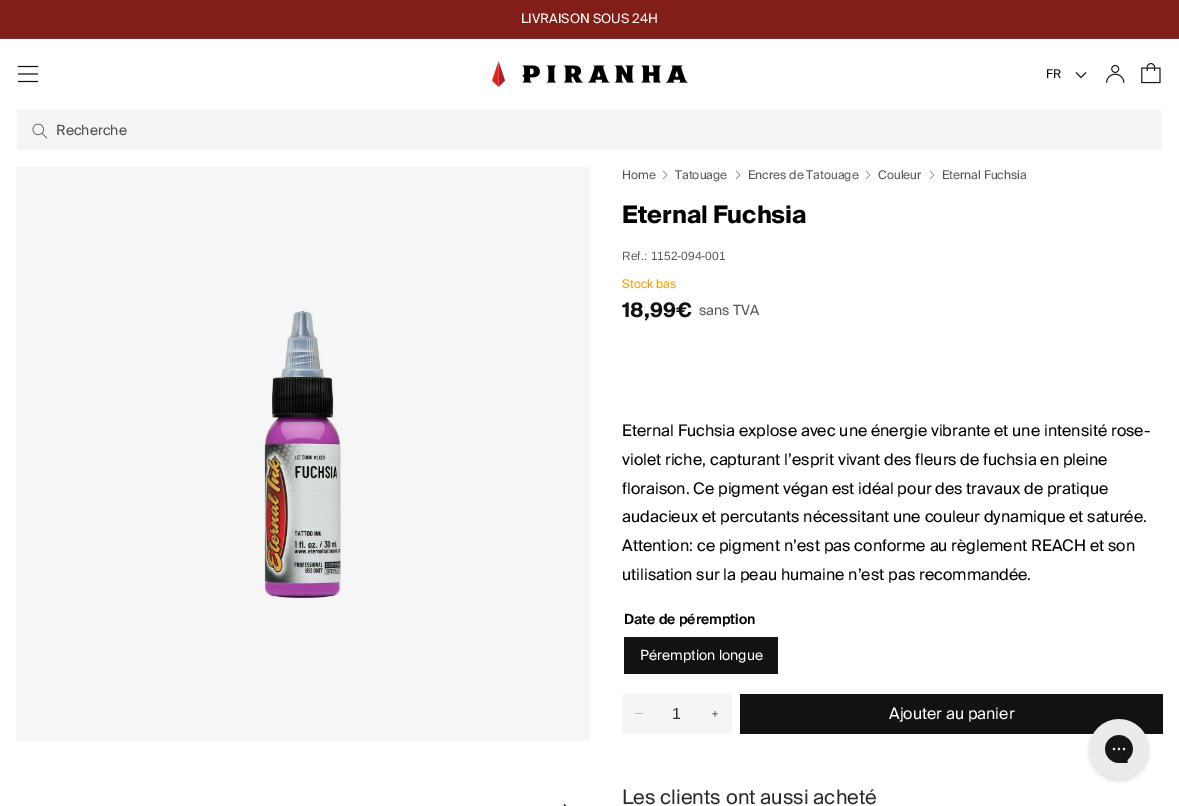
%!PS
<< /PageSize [1179 806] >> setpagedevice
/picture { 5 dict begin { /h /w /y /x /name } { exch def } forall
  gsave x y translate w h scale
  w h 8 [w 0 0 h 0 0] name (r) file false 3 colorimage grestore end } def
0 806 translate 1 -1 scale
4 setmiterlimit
1 setgray
0 0 1179 806 rectfill
0.502 0.118 0.09 setrgbcolor
0 0 1179 38 rectfill
0.541 0.188 0.165 setrgbcolor
0 38 1179 1 rectfill
/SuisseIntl-Regular [13 0 0 -13 0 0] selectfont
1 setgray
521 23 moveto (LIVRAISON SOUS 24H) show
(img1.rgb) 18 65 20 18 picture
(img2.rgb) 492 61 196 26 picture
/SuisseIntl-Regular [12 0 0 -12 0 0] selectfont
0.071 setgray
1046 78 moveto (FR) show
newpath 1086 72.5 moveto 1081 77.5 lineto 1076 72.5 lineto stroke
(img3.rgb) 1106 64 19 19 picture
(img4.rgb) 1141 63 20 21 picture
0.961 setgray
17 110 1145 40 rectfill
(img5.rgb) 32 123 16 16 picture
/SuisseIntl-Regular [14 0 0 -14 0 0] selectfont
0.318 0.31 0.31 setrgbcolor
56 135 moveto (Recherche) show
(img6.rgb) 16 167 574 574 picture
0.004 0.004 0.008 setrgbcolor
0.8 setlinewidth
newpath 564 804.5 moveto 568 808.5 lineto 564 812.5 lineto stroke
/SuisseIntl-Regular [12 0 0 -12 0 0] selectfont
0.349 0.341 0.341 setrgbcolor
622 179 moveto (Home) show
0.541 0.561 0.588 setrgbcolor
0.7 setlinewidth
1 setlinejoin
newpath 663 179 moveto 667 175 lineto 663 171 lineto stroke
0.349 0.341 0.341 setrgbcolor
675 179 moveto (Tatouage) show
0.541 0.561 0.588 setrgbcolor
newpath 736 179 moveto 740 175 lineto 736 171 lineto stroke
0.349 0.341 0.341 setrgbcolor
748 179 moveto (Encres de Tatouage) show
0.541 0.561 0.588 setrgbcolor
newpath 866 179 moveto 870 175 lineto 866 171 lineto stroke
0.349 0.341 0.341 setrgbcolor
878 179 moveto (Couleur) show
0.541 0.561 0.588 setrgbcolor
newpath 930 179 moveto 934 175 lineto 930 171 lineto stroke
0.349 0.341 0.341 setrgbcolor
942 179 moveto (Eternal Fuchsia) show
/SuisseIntl-Bold [24 0 0 -24 0 0] selectfont
0 setgray
622 223 moveto (Eternal Fuchsia) show
/LiberationSans-Regular [12 0 0 -12 0 0] selectfont
0.349 0.341 0.341 setrgbcolor
622 260 moveto (Ref.: 1152-094-001) show
/SuisseIntl-Regular [12 0 0 -12 0 0] selectfont
0.976 0.62 0.027 setrgbcolor
622 288 moveto (Stock bas) show
/SuisseIntl-Bold [20 0 0 -20 0 0] selectfont
0.071 setgray
622 317 moveto (18,99€) show
/SuisseIntl-Regular [14 0 0 -14 0 0] selectfont
0.349 0.341 0.341 setrgbcolor
699 315 moveto (sans TVA) show
/SuisseIntl-Regular [16 0 0 -16 0 0] selectfont
0 setgray
622 436 moveto (Eternal Fuchsia explose avec une énergie vibrante et une intensité rose-) show
622 465 moveto (violet riche, capturant l’esprit vivant des fleurs de fuchsia en pleine) show
622 494 moveto (floraison. Ce pigment végan est idéal pour des travaux de pratique) show
622 522 moveto (audacieux et percutants nécessitant une couleur dynamique et saturée.) show
622 551 moveto (Attention: ce pigment n’est pas conforme au règlement REACH et son) show
622 580 moveto (utilisation sur la peau humaine n’est pas recommandée.) show
/SuisseIntl-SemiBold [14 0 0 -14 0 0] selectfont
624 624 moveto (Date de péremption) show
0.071 setgray
624 637 154 37 rectfill
/SuisseIntl-Regular [14 0 0 -14 0 0] selectfont
1 setgray
640 660 moveto (Péremption longue) show
0.961 setgray
622 694 110 40 rectfill
0.576 0.576 0.58 setrgbcolor
newpath 643 714 moveto 635 714 lineto 635 713.5 lineto 643 713.5 lineto closepath eofill
/LiberationSans-Regular [16 0 0 -16 0 0] selectfont
0.204 setgray
672 719 moveto (1) show
(img7.rgb) 712 711 6 6 picture
0.071 setgray
740 694 423 40 rectfill
/SuisseIntl-Regular [16 0 0 -16 0 0] selectfont
1 setgray
889 719 moveto (Ajouter au panier) show
/SuisseIntl-Regular [20 0 0 -20 0 0] selectfont
0.157 0.165 0.173 setrgbcolor
622 804 moveto (Les clients ont aussi acheté) show
(img8.rgb) 1087 719 64 64 picture
showpage
